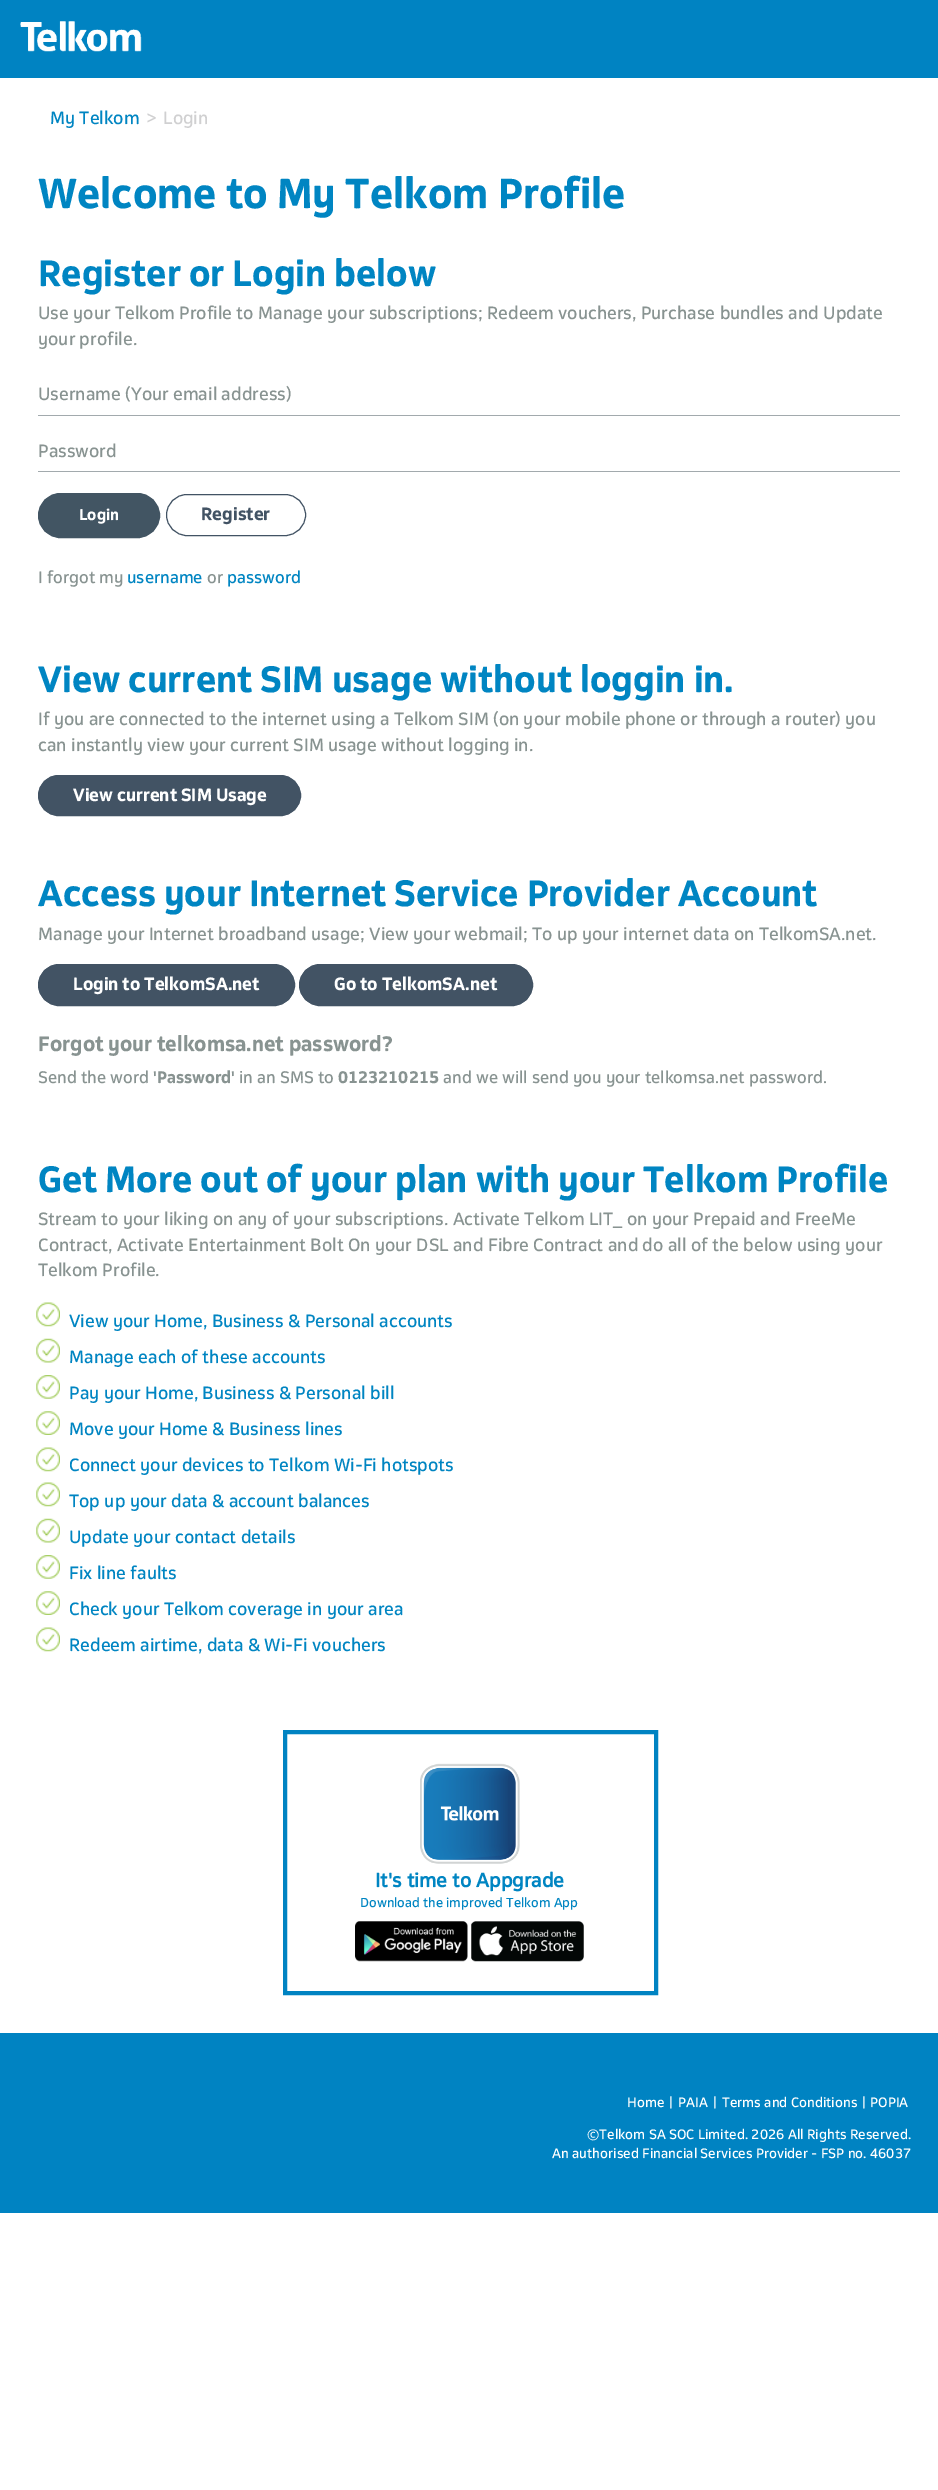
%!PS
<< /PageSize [938 2490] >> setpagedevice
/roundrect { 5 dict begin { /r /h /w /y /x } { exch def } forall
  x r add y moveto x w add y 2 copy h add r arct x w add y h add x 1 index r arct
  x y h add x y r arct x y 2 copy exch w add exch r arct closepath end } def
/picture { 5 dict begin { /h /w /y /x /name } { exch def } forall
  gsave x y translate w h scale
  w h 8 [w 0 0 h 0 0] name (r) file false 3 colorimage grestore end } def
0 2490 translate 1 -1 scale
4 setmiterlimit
1 setgray
0 0 938 2490 rectfill
0 0.514 0.761 setrgbcolor
0 0 938 78 rectfill
(img1.rgb) 20 21 122 31 picture
/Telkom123-Regular [17 0 0 -17 0 0] selectfont
0 0.522 0.761 setrgbcolor
50 124 moveto (My Telkom) show
0.816 0.816 0.82 setrgbcolor
146 124 moveto (>) show
163 124 moveto (Login) show
/Telkom123-Bold [40 0 0 -40 0 0] selectfont
0 0.522 0.761 setrgbcolor
38 208 moveto (Welcome to My Telkom Profile) show
/Telkom123-Bold [35 0 0 -35 0 0] selectfont
38 286 moveto (Register or Login below) show
/Telkom123-Regular [17 0 0 -17 0 0] selectfont
0.533 0.576 0.569 setrgbcolor
38 319 moveto (Use your Telkom Profile to Manage your subscriptions; Redeem vouchers, Purchase bundles and Update) show
38 345 moveto (your profile.) show
0.635 0.667 0.678 setrgbcolor
38 415 862 1 rectfill
0.533 0.576 0.569 setrgbcolor
38 400 moveto (Username \(Your email address\)) show
0.635 0.667 0.678 setrgbcolor
38 471 862 1 rectfill
0.533 0.576 0.569 setrgbcolor
38 457 moveto (Password) show
0.259 0.333 0.388 setrgbcolor
38.5 493.5 121 44 22 roundrect gsave fill grestore
stroke
/Telkom123-Bold [15 0 0 -15 0 0] selectfont
1 setgray
79 520 moveto (Login) show
0.259 0.325 0.392 setrgbcolor
166.5 494.5 139 41 20.5 roundrect stroke
/Telkom123-Bold [17 0 0 -17 0 0] selectfont
201 520 moveto (Register) show
/Telkom123-Regular [16 0 0 -16 0 0] selectfont
0.533 0.576 0.569 setrgbcolor
38 583 moveto (I forgot my) show
0 0.522 0.761 setrgbcolor
127 583 moveto (username) show
0.533 0.576 0.569 setrgbcolor
207 583 moveto (or) show
0 0.522 0.761 setrgbcolor
227 583 moveto (password) show
/Telkom123-Bold [35 0 0 -35 0 0] selectfont
38 692 moveto (View current SIM usage without loggin in.) show
/Telkom123-Regular [17 0 0 -17 0 0] selectfont
0.533 0.576 0.569 setrgbcolor
38 725 moveto (If you are connected to the internet using a Telkom SIM \(on your mobile phone or through a router\) you) show
38 751 moveto (can instantly view your current SIM usage without logging in.) show
0.259 0.325 0.392 setrgbcolor
38.5 775.5 262 40 20 roundrect gsave fill grestore
stroke
/Telkom123-Bold [17 0 0 -17 0 0] selectfont
1 setgray
73 801 moveto (View current SIM Usage) show
/Telkom123-Bold [35 0 0 -35 0 0] selectfont
0 0.522 0.761 setrgbcolor
38 906 moveto (Access your Internet Service Provider Account) show
/Telkom123-Regular [17 0 0 -17 0 0] selectfont
0.533 0.576 0.569 setrgbcolor
38 940 moveto (Manage your Internet broadband usage; View your webmail; To up your internet data on TelkomSA.net.) show
0.259 0.325 0.392 setrgbcolor
38.5 964.5 256 41 20.5 roundrect gsave fill grestore
stroke
/Telkom123-Bold [17 0 0 -17 0 0] selectfont
1 setgray
73 990 moveto (Login to TelkomSA.net) show
0.259 0.325 0.392 setrgbcolor
299.5 964.5 233 41 20.5 roundrect gsave fill grestore
stroke
1 setgray
334 990 moveto (Go to TelkomSA.net) show
/Telkom123-Bold [20 0 0 -20 0 0] selectfont
0.533 0.576 0.569 setrgbcolor
38 1051 moveto (Forgot your telkomsa.net password?) show
/Telkom123-Regular [16 0 0 -16 0 0] selectfont
38 1083 moveto (Send the word) show
/Telkom123-Bold [16 0 0 -16 0 0] selectfont
153 1083 moveto ('Password') show
/Telkom123-Regular [16 0 0 -16 0 0] selectfont
239 1083 moveto (in an SMS to) show
/Telkom123-Bold [16 0 0 -16 0 0] selectfont
338 1083 moveto (0123210215) show
/Telkom123-Regular [16 0 0 -16 0 0] selectfont
443 1083 moveto (and we will send you your telkomsa.net password.) show
/Telkom123-Bold [35 0 0 -35 0 0] selectfont
0 0.522 0.761 setrgbcolor
38 1192 moveto (Get More out of your plan with your Telkom Profile) show
/Telkom123-Regular [17 0 0 -17 0 0] selectfont
0.533 0.576 0.569 setrgbcolor
38 1225 moveto (Stream to your liking on any of your subscriptions. Activate Telkom LIT_ on your Prepaid and FreeMe) show
38 1251 moveto (Contract, Activate Entertainment Bolt On your DSL and Fibre Contract and do all of the below using your) show
38 1276 moveto (Telkom Profile.) show
(img2.rgb) 36 1302 24 25 picture
0 0.522 0.761 setrgbcolor
69 1327 moveto (View your Home, Business & Personal accounts) show
(img3.rgb) 36 1338 24 25 picture
69 1363 moveto (Manage each of these accounts) show
(img4.rgb) 36 1375 24 24 picture
69 1399 moveto (Pay your Home, Business & Personal bill) show
(img5.rgb) 36 1411 24 24 picture
69 1435 moveto (Move your Home & Business lines) show
(img2.rgb) 36 1447 24 25 picture
69 1471 moveto (Connect your devices to Telkom Wi-Fi hotspots) show
(img2.rgb) 36 1482 24 25 picture
69 1507 moveto (Top up your data & account balances) show
(img3.rgb) 36 1518 24 25 picture
69 1543 moveto (Update your contact details) show
(img6.rgb) 36 1555 24 24 picture
69 1579 moveto (Fix line faults) show
(img5.rgb) 36 1591 24 24 picture
69 1615 moveto (Check your Telkom coverage in your area) show
(img2.rgb) 36 1627 24 25 picture
69 1651 moveto (Redeem airtime, data & Wi-Fi vouchers) show
0 0.514 0.761 setrgbcolor
4 setlinewidth
285 1732 371 261 rectstroke
(img7.rgb) 420 1763 100 101 picture
/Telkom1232-Bold [18.75 0 0 -18.75 0 0] selectfont
0 0.522 0.761 setrgbcolor
375 1887 moveto (It's time to Appgrade) show
/Telkom123-Regular [12.5 0 0 -12.5 0 0] selectfont
360 1907 moveto (Download the improved Telkom App) show
(img8.rgb) 355 1921 113 41 picture
(img9.rgb) 471 1921 113 41 picture
0 0.514 0.761 setrgbcolor
0 2033 938 180 rectfill
/Telkom123-Regular [13 0 0 -13 0 0] selectfont
1 setgray
627 2107 moveto (Home) show
669 2107 moveto (|) show
678 2107 moveto (PAIA) show
713 2107 moveto (|) show
722 2107 moveto (Terms and Conditions) show
862 2107 moveto (|) show
870 2107 moveto (POPIA) show
587 2139 moveto (©Telkom SA SOC Limited. 2026 All Rights Reserved.) show
552 2158 moveto (An authorised Financial Services Provider - FSP no. 46037) show
showpage
